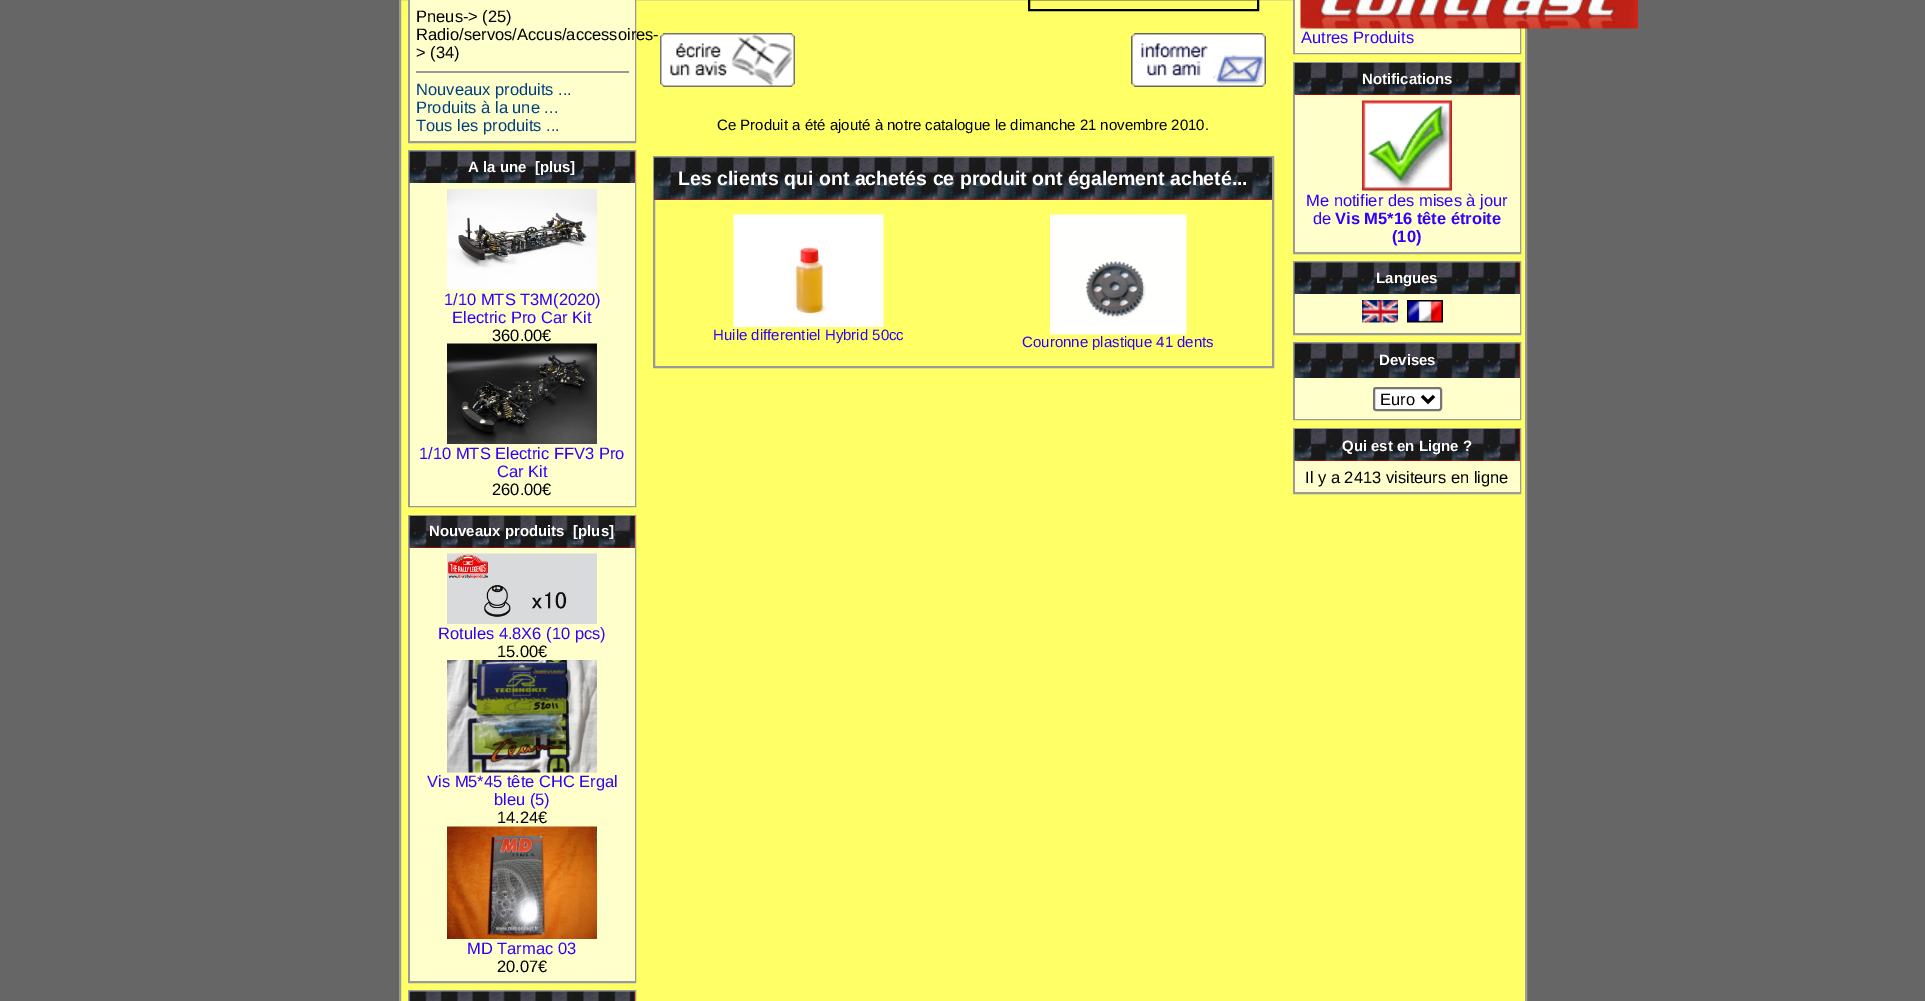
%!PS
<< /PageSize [1925 1001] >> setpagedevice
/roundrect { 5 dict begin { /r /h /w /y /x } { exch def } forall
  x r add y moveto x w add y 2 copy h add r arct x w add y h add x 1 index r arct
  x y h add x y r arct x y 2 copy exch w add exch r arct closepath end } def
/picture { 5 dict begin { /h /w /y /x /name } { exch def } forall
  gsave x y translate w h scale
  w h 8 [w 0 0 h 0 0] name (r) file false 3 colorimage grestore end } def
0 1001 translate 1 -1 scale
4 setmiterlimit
0.4 setgray
0 0 1925 1001 rectfill
1 1 0.4 setrgbcolor
newpath 400 -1 moveto 1526 -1 lineto 1526 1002 lineto 400 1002 lineto closepath gsave fill grestore
0.604 setgray
2 setlinewidth
stroke
409 -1 226 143 rectstroke
1 1 0.8 setrgbcolor
410 0 225 141 rectfill
/LiberationSans-Regular [16.5 0 0 -16.5 0 0] selectfont
0 setgray
416 22 moveto (Pneus-> \(25\)) show
416 40 moveto (Radio/servos/Accus/accessoires-) show
416 58 moveto (> \(34\)) show
0.604 setgray
416 71 213 2 rectfill
0 0.251 0.502 setrgbcolor
416 95 moveto (Nouveaux produits ...) show
416 113 moveto (Produits à la une ...) show
416 131 moveto (Tous les produits ...) show
0.604 setgray
409 151 226 355 rectstroke
1 0 0 setrgbcolor
634 152 1 31 rectfill
(img1.rgb) 409 151 226 32 picture
/LiberationSans-Bold [15 0 0 -15 0 0] selectfont
1 setgray
468 172 moveto (A la une  [plus]) show
1 1 0.8 setrgbcolor
410 183 225 323 rectfill
(img2.rgb) 447 189 150 101 picture
/LiberationSans-Regular [16.5 0 0 -16.5 0 0] selectfont
0.2 0 1 setrgbcolor
444 305 moveto (1/10 MTS T3M\(2020\)) show
452 323 moveto (Electric Pro Car Kit) show
0 setgray
492 341 moveto (360.00€) show
(img3.rgb) 447 343 150 101 picture
0.2 0 1 setrgbcolor
419 459 moveto (1/10 MTS Electric FFV3 Pro) show
497 477 moveto (Car Kit) show
0 setgray
492 495 moveto (260.00€) show
0.604 setgray
409 516 226 466 rectstroke
1 0 0 setrgbcolor
410 516 225 32 rectfill
(img4.rgb) 409 516 226 32 picture
/LiberationSans-Bold [15 0 0 -15 0 0] selectfont
1 setgray
429 536 moveto (Nouveaux produits  [plus]) show
1 1 0.8 setrgbcolor
410 548 225 433 rectfill
(img5.rgb) 447 553 150 71 picture
/LiberationSans-Regular [16.5 0 0 -16.5 0 0] selectfont
0.2 0 1 setrgbcolor
438 639 moveto (Rotules 4.8X6 \(10 pcs\)) show
0 setgray
497 657 moveto (15.00€) show
(img6.rgb) 447 660 150 113 picture
0.2 0 1 setrgbcolor
427 787 moveto (Vis M5*45 tête CHC Ergal) show
494 805 moveto (bleu \(5\)) show
0 setgray
497 823 moveto (14.24€) show
(img7.rgb) 447 826 150 113 picture
0.2 0 1 setrgbcolor
467 954 moveto (MD Tarmac 03) show
0 setgray
497 972 moveto (20.07€) show
0.604 setgray
409 991 226 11 rectstroke
1 0 0 setrgbcolor
634 992 1 9 rectfill
(img8.rgb) 409 991 226 10 picture
0 setgray
1029 -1 229 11 rectstroke
(img9.rgb) 660 33 135 54 picture
(img10.rgb) 1131 33 135 54 picture
/LiberationSans-Regular [15 0 0 -15 0 0] selectfont
717 130 moveto (Ce Produit a été ajouté à notre catalogue le dimanche 21 novembre 2010.) show
0.604 setgray
654 157 619 210 rectstroke
1 0 0 setrgbcolor
654 199 618 1 rectfill
(img11.rgb) 654 157 618 43 picture
/LiberationSans-Bold [19.5 0 0 -19.5 0 0] selectfont
1 setgray
678 185 moveto (Les clients qui ont achetés ce produit ont également acheté...) show
(img12.rgb) 733 214 151 113 picture
/LiberationSans-Regular [15 0 0 -15 0 0] selectfont
0.2 0 1 setrgbcolor
713 340 moveto (Huile differentiel Hybrid 50cc) show
(img13.rgb) 1050 214 137 121 picture
1022 347 moveto (Couronne plastique 41 dents) show
0.604 setgray
1294 -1 226 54 rectstroke
1 1 0.8 setrgbcolor
1295 0 225 53 rectfill
(img14.rgb) 1300 0 338 29 picture
/LiberationSans-Regular [16.5 0 0 -16.5 0 0] selectfont
0.2 0 1 setrgbcolor
1301 43 moveto (Autres Produits) show
0.604 setgray
1294 63 226 190 rectstroke
1 0 0 setrgbcolor
1295 63 225 32 rectfill
(img15.rgb) 1294 63 226 32 picture
/LiberationSans-Bold [15 0 0 -15 0 0] selectfont
1 setgray
1362 84 moveto (Notifications) show
1 1 0.8 setrgbcolor
1295 95 225 157 rectfill
(img16.rgb) 1362 100 90 91 picture
/LiberationSans-Regular [16.5 0 0 -16.5 0 0] selectfont
0.2 0 1 setrgbcolor
1306 206 moveto (Me notifier des mises à jour) show
1313 224 moveto (de) show
/LiberationSans-Bold [16.5 0 0 -16.5 0 0] selectfont
1335 224 moveto (Vis M5*16 tête étroite) show
1392 242 moveto (\(10\)) show
0.604 setgray
1294 262 226 72 rectstroke
1 0 0 setrgbcolor
1519 263 1 31 rectfill
(img17.rgb) 1294 262 226 32 picture
/LiberationSans-Bold [15 0 0 -15 0 0] selectfont
1 setgray
1376 283 moveto (Langues) show
1 1 0.8 setrgbcolor
1295 294 225 39 rectfill
(img18.rgb) 1362 300 36 23 picture
(img19.rgb) 1407 300 36 23 picture
0.604 setgray
1294 343 226 76 rectstroke
1 0 0 setrgbcolor
1519 344 1 34 rectfill
(img20.rgb) 1294 343 226 35 picture
1 setgray
1379 365 moveto (Devises) show
1 1 0.8 setrgbcolor
1295 378 225 41 rectfill
1 setgray
1374 388 67 22 2 roundrect gsave fill grestore
0.463 setgray
stroke
0 setgray
3 setlinewidth
newpath 1422 396 moveto 1428 402 lineto 1434 396 lineto stroke
/LiberationSans-Regular [16.5 0 0 -16.5 0 0] selectfont
1380 405 moveto (Euro) show
0.604 setgray
2 setlinewidth
1294 429 226 64 rectstroke
1 0 0 setrgbcolor
1295 429 225 32 rectfill
(img21.rgb) 1294 429 226 32 picture
/LiberationSans-Bold [15 0 0 -15 0 0] selectfont
1 setgray
1342 451 moveto (Qui est en Ligne ?) show
1 1 0.8 setrgbcolor
1295 461 225 31 rectfill
/LiberationSans-Regular [16.5 0 0 -16.5 0 0] selectfont
0 setgray
1305 483 moveto (Il y a 2413 visiteurs en ligne) show
showpage
